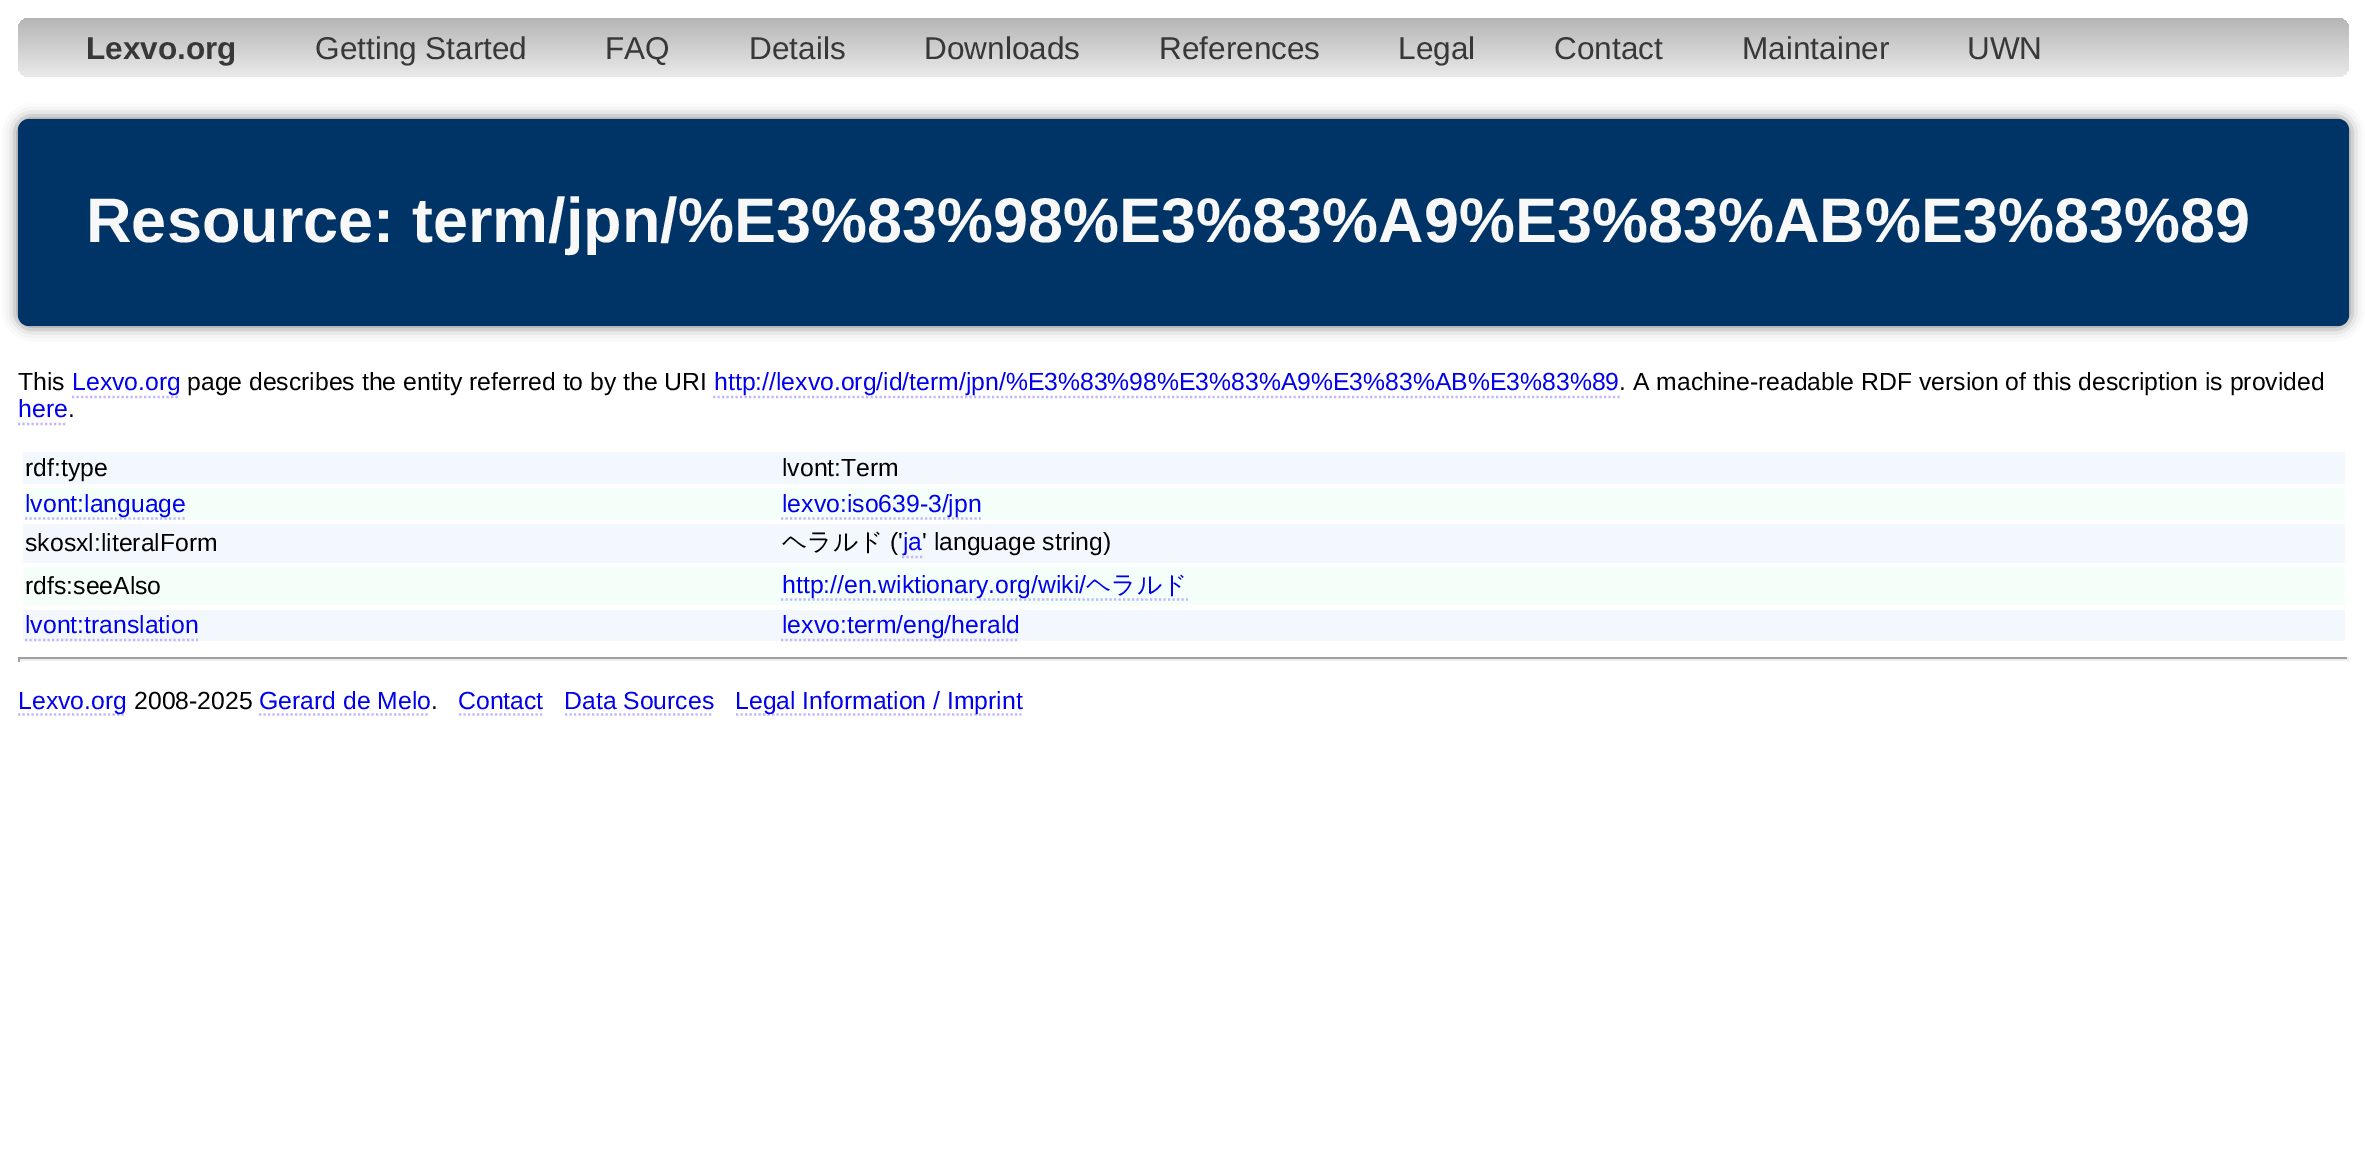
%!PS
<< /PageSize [2365 1161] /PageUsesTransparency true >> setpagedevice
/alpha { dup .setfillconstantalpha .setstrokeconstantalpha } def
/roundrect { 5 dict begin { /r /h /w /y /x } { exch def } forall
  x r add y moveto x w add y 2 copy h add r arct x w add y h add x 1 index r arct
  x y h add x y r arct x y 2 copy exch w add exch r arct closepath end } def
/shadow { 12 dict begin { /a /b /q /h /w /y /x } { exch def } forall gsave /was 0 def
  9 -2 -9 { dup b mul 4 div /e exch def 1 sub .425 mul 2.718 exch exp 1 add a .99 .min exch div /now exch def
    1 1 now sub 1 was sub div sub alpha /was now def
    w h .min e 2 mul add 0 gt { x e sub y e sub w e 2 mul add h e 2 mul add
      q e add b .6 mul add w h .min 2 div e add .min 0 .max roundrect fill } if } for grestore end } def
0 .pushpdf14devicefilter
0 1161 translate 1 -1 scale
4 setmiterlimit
1 setgray
0 0 2365 1161 rectfill
gsave 18 18 2331 59 11 roundrect clip newpath
<< /ShadingType 2 /ColorSpace /DeviceRGB /Coords [1184 18 1184 77] /Extend [true true] /Function << /FunctionType 2 /Domain [0 1] /C0 [0.71 0.71 0.71] /C1 [0.918 0.918 0.918] /N 1 >> >> shfill grestore
/LiberationSans-Bold [31.5 0 0 -31.5 0 0] selectfont
0.22 setgray
86 59 moveto (Lexvo.org) show
/LiberationSans-Regular [31.5 0 0 -31.5 0 0] selectfont
315 59 moveto (Getting Started) show
605 59 moveto (FAQ) show
749 59 moveto (Details) show
924 59 moveto (Downloads) show
1159 59 moveto (References) show
1398 59 moveto (Legal) show
1554 59 moveto (Contact) show
1742 59 moveto (Maintainer) show
1967 59 moveto (UWN) show
0 setgray
18 119 2331 207 11 7 0.6 shadow
0 0.2 0.4 setrgbcolor
18 119 2331 207 11 roundrect fill
/LiberationSans-Bold [63 0 0 -63 0 0] selectfont
0.973 setgray
86 242 moveto (Resource: term/jpn/%E3%83%98%E3%83%A9%E3%83%AB%E3%83%89) show
/LiberationSans-Regular [24.75 0 0 -24.75 0 0] selectfont
0 setgray
18 390 moveto (This) show
0.749 0.714 1 setrgbcolor
2.2 setlinewidth
[2.25 2.25] 0 setdash
newpath 72 397 moveto 180 397 lineto stroke
0 0 0.933 setrgbcolor
72 390 moveto (Lexvo.org) show
0 setgray
187 390 moveto (page describes the entity referred to by the URI) show
0.749 0.714 1 setrgbcolor
newpath 713 397 moveto 1620 397 lineto stroke
0 0 0.933 setrgbcolor
714 390 moveto (http://lexvo.org/id/term/jpn/%E3%83%98%E3%83%A9%E3%83%AB%E3%83%89) show
0 setgray
1619 390 moveto (. A machine-readable RDF version of this description is provided) show
0 0 0.933 setrgbcolor
18 417 moveto (here) show
0.749 0.714 1 setrgbcolor
newpath 18 424 moveto 67.5 424 lineto stroke
0 setgray
68 417 moveto (.) show
0.953 0.973 1 setrgbcolor
23 452 2322 32 rectfill
0 setgray
25 476 moveto (rdf:type) show
782 476 moveto (lvont:Term) show
0.953 1 0.973 setrgbcolor
23 488 2322 32 rectfill
0.749 0.714 1 setrgbcolor
newpath 25 518.5 moveto 187 518.5 lineto stroke
0 0 0.933 setrgbcolor
25 512 moveto (lvont:language) show
0.749 0.714 1 setrgbcolor
newpath 781 518.5 moveto 981 518.5 lineto stroke
0 0 0.933 setrgbcolor
782 512 moveto (lexvo:iso639-3/jpn) show
0.953 0.973 1 setrgbcolor
23 524 2322 39 rectfill
0 setgray
25 551 moveto (skosxl:literalForm) show
/WenQuanYiZenHei-Medium [24.75 0 0 -24.75 0 0] selectfont
782 550 moveto (ヘラルド) show
/LiberationSans-Regular [24.75 0 0 -24.75 0 0] selectfont
890 550 moveto (\(') show
0.749 0.714 1 setrgbcolor
newpath 902 557 moveto 922.5 557 lineto stroke
0 0 0.933 setrgbcolor
903 550 moveto (ja) show
0 setgray
922 550 moveto (' language string\)) show
0.953 1 0.973 setrgbcolor
23 567 2322 38 rectfill
0 setgray
25 594 moveto (rdfs:seeAlso) show
0.749 0.714 1 setrgbcolor
newpath 781 599.5 moveto 1188 599.5 lineto stroke
0 0 0.933 setrgbcolor
782 593 moveto (http://en.wiktionary.org/wiki/) show
/WenQuanYiZenHei-Medium [24.75 0 0 -24.75 0 0] selectfont
1086 593 moveto (ヘラルド) show
0.953 0.973 1 setrgbcolor
23 610 2322 31 rectfill
/LiberationSans-Regular [24.75 0 0 -24.75 0 0] selectfont
0 0 0.933 setrgbcolor
25 633 moveto (lvont:translation) show
0.749 0.714 1 setrgbcolor
newpath 25 640 moveto 198 640 lineto stroke
newpath 781 640 moveto 1019 640 lineto stroke
0 0 0.933 setrgbcolor
782 633 moveto (lexvo:term/eng/herald) show
0.624 setgray
18 657 2331 2 rectfill
0.933 setgray
2347 657 2 5 rectfill
18 659 2331 2 rectfill
0.624 setgray
18 657 2 5 rectfill
0.749 0.714 1 setrgbcolor
newpath 18 714.5 moveto 126 714.5 lineto stroke
0 0 0.933 setrgbcolor
18 709 moveto (Lexvo.org) show
0 setgray
134 709 moveto (2008-2025) show
0 0 0.933 setrgbcolor
259 709 moveto (Gerard de Melo) show
0.749 0.714 1 setrgbcolor
newpath 259 714.5 moveto 430 714.5 lineto stroke
0 setgray
431 709 moveto (.) show
0 0 0.933 setrgbcolor
458 709 moveto (Contact) show
0.749 0.714 1 setrgbcolor
newpath 459 714.5 moveto 544.5 714.5 lineto stroke
0 0 0.933 setrgbcolor
564 709 moveto (Data Sources) show
0.749 0.714 1 setrgbcolor
newpath 565 714.5 moveto 713 714.5 lineto stroke
newpath 736 714.5 moveto 1021.5 714.5 lineto stroke
0 0 0.933 setrgbcolor
735 709 moveto (Legal Information / Imprint) show
.poppdf14devicefilter showpage
